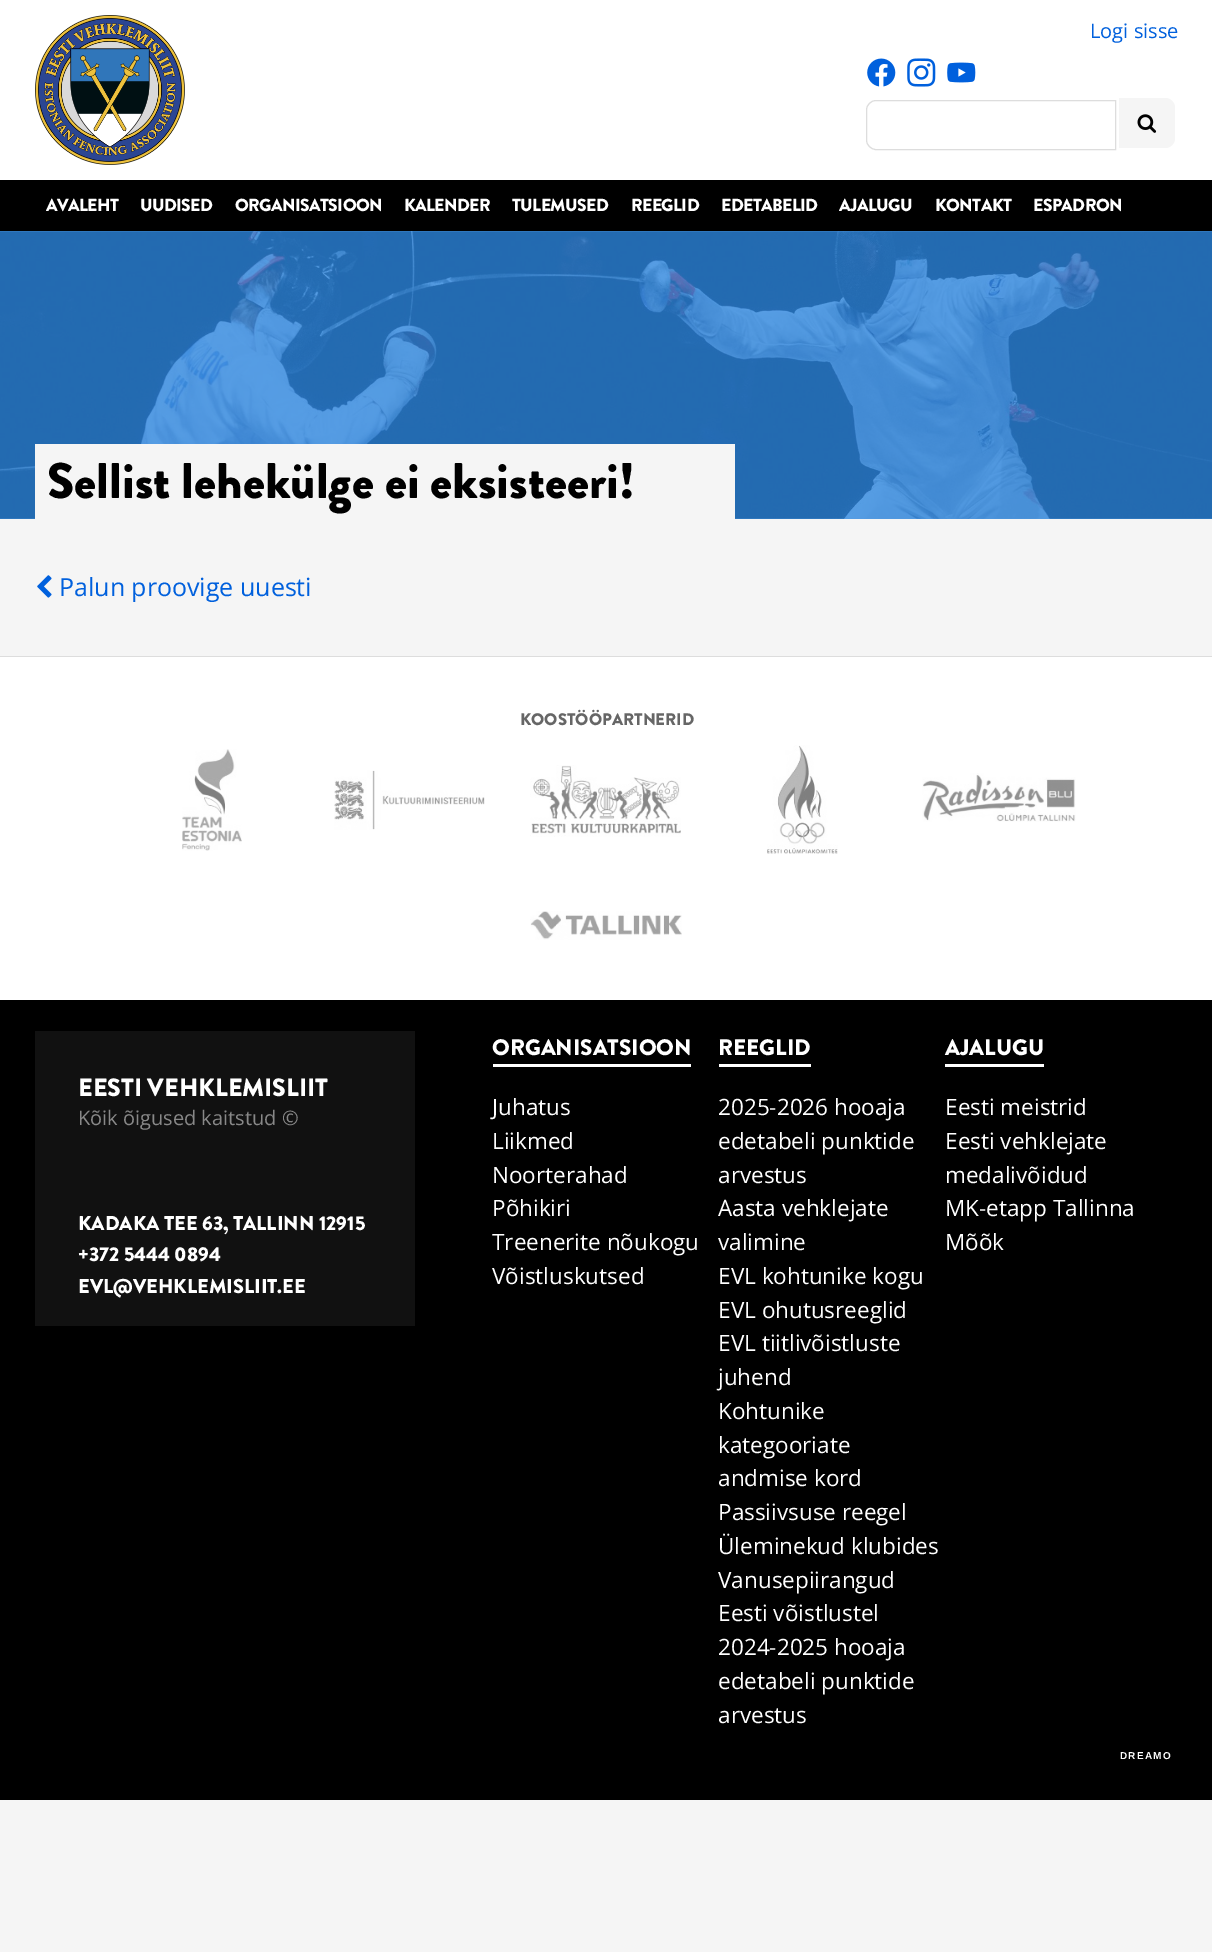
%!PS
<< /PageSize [1212 1952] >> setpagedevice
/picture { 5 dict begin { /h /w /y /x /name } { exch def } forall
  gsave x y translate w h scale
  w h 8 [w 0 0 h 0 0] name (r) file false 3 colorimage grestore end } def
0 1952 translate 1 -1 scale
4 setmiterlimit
0.961 setgray
0 0 1212 1952 rectfill
1 setgray
0 0 1212 180 rectfill
(img1.rgb) 35 15 150 150 picture
/OpenSans-Regular [20 0 0 -20 0 0] selectfont
0 0.376 0.867 setrgbcolor
1090 38 moveto (Logi sisse) show
(img2.rgb) 867 58 29 29 picture
(img3.rgb) 907 58 29 29 picture
(img4.rgb) 947 62 29 21 picture
0.867 setgray
newpath 876 100.5 moveto 1115.5 100.5 lineto 1115.5 149.5 lineto 876 149.5 lineto 871 149.5 866.5 145 866.5 140 curveto 866.5 110 lineto 866.5 105 871 100.5 876 100.5 curveto closepath stroke
0.961 setgray
newpath 1119 98 moveto 1165 98 lineto 1170.5 98 1175 102.5 1175 108 curveto 1175 138 lineto 1175 143.5 1170.5 148 1165 148 curveto 1119 148 lineto closepath fill
(img5.rgb) 1137 114 20 19 picture
0 setgray
0 180 1212 51 rectfill
/BrandonGrotesque-Black [17.5 0 0 -17.5 0 0] selectfont
1 setgray
46 211 moveto -0.6 0 (AVALEHT) ashow
140 211 moveto -0.6 0 (UUDISED) ashow
235 211 moveto -0.6 0 (ORGANISATSIOON) ashow
404 211 moveto -0.6 0 (KALENDER) ashow
512 211 moveto -0.6 0 (TULEMUSED) ashow
631 211 moveto -0.6 0 (REEGLID) ashow
721 211 moveto -0.6 0 (EDETABELID) ashow
839 211 moveto -0.6 0 (AJALUGU) ashow
935 211 moveto -0.6 0 (KONTAKT) ashow
1033 211 moveto -0.6 0 (ESPADRON) ashow
(img6.rgb) 0 231 1212 288 picture
0.961 setgray
35 444 700 75 rectfill
/BrandonGrotesque-Black [50 0 0 -50 0 0] selectfont
0 setgray
47 498 moveto (Sellist lehekülge ei eksisteeri!) show
(img7.rgb) 37 575 15 23 picture
/OpenSans-Regular [25 0 0 -25 0 0] selectfont
0 0.376 0.867 setrgbcolor
59 596 moveto (Palun proovige uuesti) show
1 setgray
0 657 1212 343 rectfill
0.867 setgray
0 656 1212 1 rectfill
/BrandonGrotesque-Black [16.75 0 0 -16.75 0 0] selectfont
0.4 setgray
520 725 moveto (KOOSTÖÖPARTNERID) show
(img8.rgb) 182 749 60 102 picture
(img9.rgb) 334 770 151 60 picture
(img10.rgb) 530 765 151 72 picture
(img11.rgb) 767 745 71 109 picture
(img12.rgb) 922 773 154 49 picture
(img13.rgb) 530 911 152 29 picture
0 setgray
0 1000 1212 800 rectfill
0.067 setgray
35 1031 380 295 rectfill
/BrandonGrotesque-Black [25 0 0 -25 0 0] selectfont
1 setgray
78 1096 moveto (EESTI VEHKLEMISLIIT) show
/OpenSans-Regular [20 0 0 -20 0 0] selectfont
0.533 setgray
78 1125 moveto (Kõik õigused kaitstud ©) show
/BrandonGrotesque-Black [20 0 0 -20 0 0] selectfont
1 setgray
78 1230 moveto (KADAKA TEE 63, TALLINN 12915) show
78 1261 moveto (+372 5444 0894) show
78 1293 moveto (EVL@VEHKLEMISLIIT.EE) show
/BrandonGrotesque-Black [22.5 0 0 -22.5 0 0] selectfont
492 1055 moveto (ORGANISATSIOON) show
493 1064 198 3 rectfill
/OpenSans-Regular [22.5 0 0 -22.5 0 0] selectfont
492 1115 moveto (Juhatus) show
492 1149 moveto (Liikmed) show
492 1183 moveto (Noorterahad) show
492 1216 moveto (Põhikiri) show
492 1250 moveto (Treenerite nõukogu) show
492 1284 moveto (Võistluskutsed) show
/BrandonGrotesque-Black [22.5 0 0 -22.5 0 0] selectfont
718 1055 moveto (REEGLID) show
719 1064 92 3 rectfill
/OpenSans-Regular [22.5 0 0 -22.5 0 0] selectfont
718 1115 moveto (2025-2026 hooaja) show
718 1149 moveto (edetabeli punktide) show
718 1183 moveto (arvestus) show
718 1216 moveto (Aasta vehklejate) show
718 1250 moveto (valimine) show
718 1284 moveto (EVL kohtunike kogu) show
718 1318 moveto (EVL ohutusreeglid) show
718 1351 moveto (EVL tiitlivõistluste) show
718 1385 moveto (juhend) show
718 1419 moveto (Kohtunike) show
718 1453 moveto (kategooriate) show
718 1486 moveto (andmise kord) show
718 1520 moveto (Passiivsuse reegel) show
718 1554 moveto (Üleminekud klubides) show
718 1588 moveto (Vanusepiirangud) show
718 1621 moveto (Eesti võistlustel) show
718 1655 moveto (2024-2025 hooaja) show
718 1689 moveto (edetabeli punktide) show
718 1723 moveto (arvestus) show
/BrandonGrotesque-Black [22.5 0 0 -22.5 0 0] selectfont
945 1055 moveto (AJALUGU) show
945 1064 99 3 rectfill
/OpenSans-Regular [22.5 0 0 -22.5 0 0] selectfont
945 1115 moveto (Eesti meistrid) show
945 1149 moveto (Eesti vehklejate) show
945 1183 moveto (medalivõidud) show
945 1216 moveto (MK-etapp Tallinna) show
945 1250 moveto (Mõõk) show
/LiberationSans-Bold [10 0 0 -10 0 0] selectfont
1120 1759 moveto 1.25 0 (DREAMO) ashow
showpage
